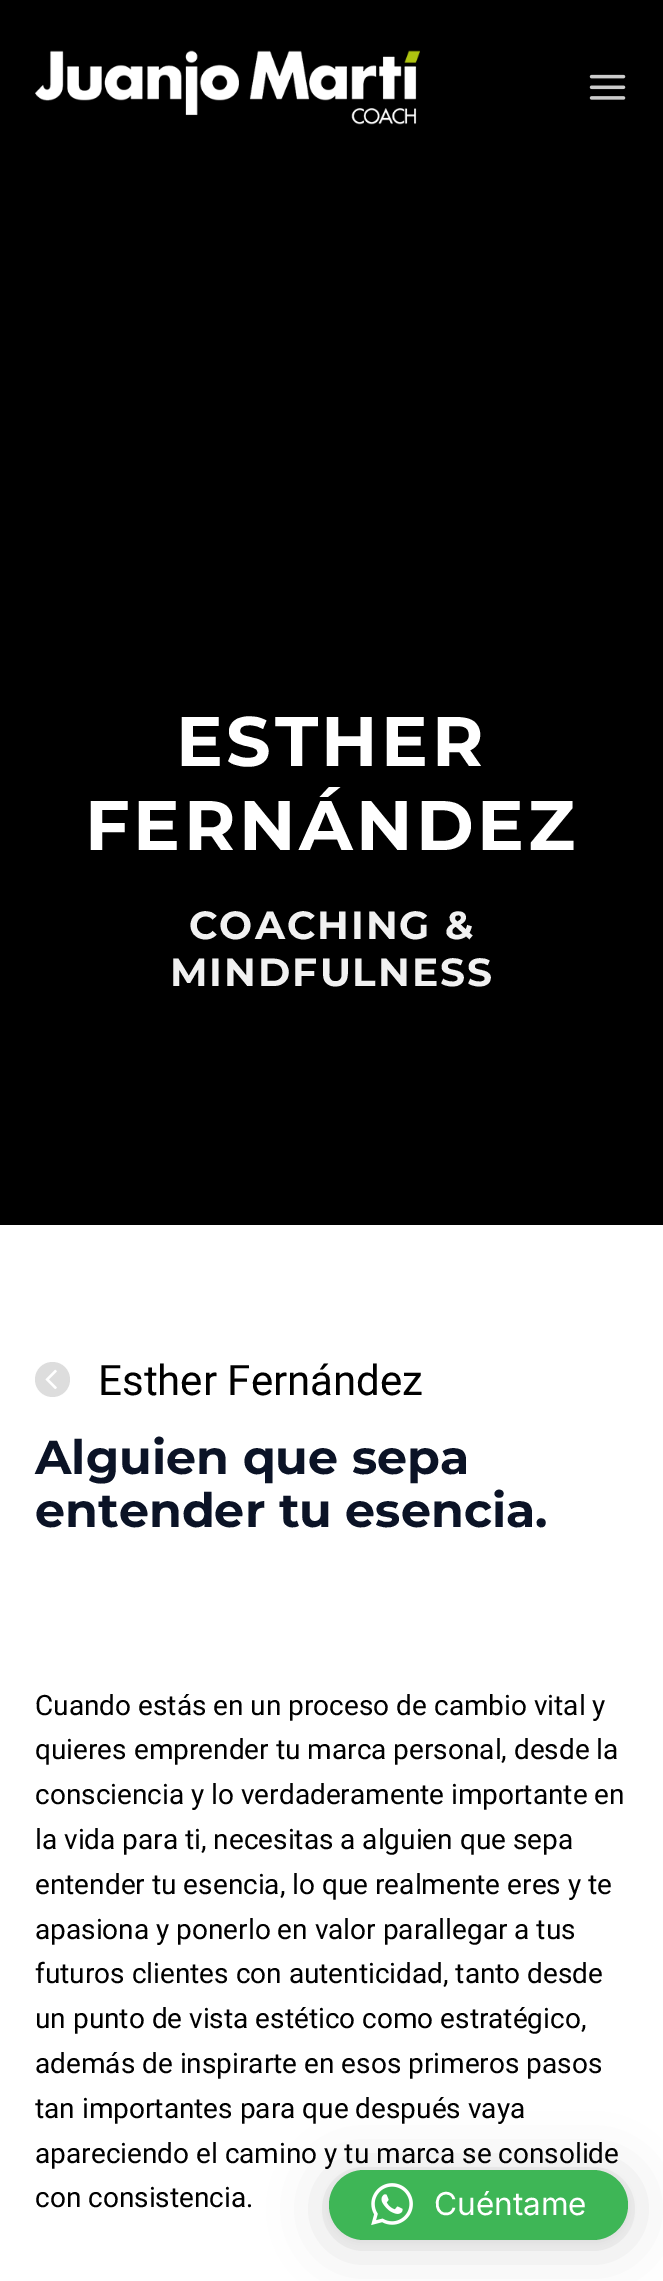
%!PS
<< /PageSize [663 2281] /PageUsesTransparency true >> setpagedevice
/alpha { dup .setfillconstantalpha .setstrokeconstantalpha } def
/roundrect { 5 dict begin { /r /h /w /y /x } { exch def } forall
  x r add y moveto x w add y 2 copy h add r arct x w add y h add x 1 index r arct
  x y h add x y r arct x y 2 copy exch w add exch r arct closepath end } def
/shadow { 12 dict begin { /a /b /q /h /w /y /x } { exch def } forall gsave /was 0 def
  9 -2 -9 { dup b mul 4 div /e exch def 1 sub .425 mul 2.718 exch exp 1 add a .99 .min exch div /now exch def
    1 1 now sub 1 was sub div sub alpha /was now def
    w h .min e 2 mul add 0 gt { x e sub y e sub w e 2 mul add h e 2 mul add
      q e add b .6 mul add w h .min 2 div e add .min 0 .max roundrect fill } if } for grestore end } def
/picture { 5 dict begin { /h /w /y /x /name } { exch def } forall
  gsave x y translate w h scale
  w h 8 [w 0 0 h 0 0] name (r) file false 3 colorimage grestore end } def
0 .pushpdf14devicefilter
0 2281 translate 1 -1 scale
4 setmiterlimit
1 setgray
0 0 663 2281 rectfill
0 setgray
0 0 663 1225 rectfill
(img1.rgb) 35 50 385 75 picture
(img2.rgb) 589 74 37 26 picture
/Montserrat-Bold [70 0 0 -70 0 0] selectfont
1 setgray
176 766 moveto 3.5 0 (ESTHER) ashow
85 850 moveto 3.5 0 (FERNÁNDEZ) ashow
/Montserrat-Bold [39.25 0 0 -39.25 0 0] selectfont
0.945 setgray
189 939 moveto 2 0 (COACHING &) ashow
170 986 moveto 2 0 (MINDFULNESS) ashow
0.867 setgray
newpath 52.5 1379.5 17.5 0 360 arc closepath fill
(img3.rgb) 45 1369 12 20 picture
/Roboto-Regular [42 0 0 -42 0 0] selectfont
0 setgray
98 1395 moveto (Esther Fernández) show
/Montserrat-Bold [47.6 0 0 -47.6 0 0] selectfont
0.043 0.075 0.149 setrgbcolor
35 1474 moveto (Alguien que sepa) show
35 1527 moveto (entender tu esencia.) show
/Roboto-Regular [28 0 0 -28 0 0] selectfont
0 setgray
35 1715 moveto (Cuando estás en un proceso de cambio vital y) show
35 1759 moveto (quieres emprender tu marca personal, desde la) show
35 1804 moveto (consciencia y lo verdaderamente importante en) show
35 1849 moveto (la vida para ti, necesitas a alguien que sepa) show
35 1894 moveto (entender tu esencia, lo que realmente eres y te) show
35 1939 moveto (apasiona y ponerlo en valor parallegar a tus) show
35 1983 moveto (futuros clientes con autenticidad, tanto desde) show
35 2028 moveto (un punto de vista estético como estratégico,) show
35 2073 moveto (además de inspirarte en esos primeros pasos) show
35 2118 moveto (tan importantes para que después vaya) show
35 2163 moveto (apareciendo el camino y tu marca se consolide) show
35 2207 moveto (con consistencia.) show
329 2174 299 70 35 28 0.16 shadow
329 2172 299 70 35 5 0.06 shadow
0.243 0.714 0.337 setrgbcolor
329 2170 299 70 35 roundrect fill
(img4.rgb) 371 2183 42 43 picture
/Inter-Regular [31.5 0 0 -31.5 0 0] selectfont
1 setgray
434 2215 moveto (Cuéntame) show
.poppdf14devicefilter showpage
